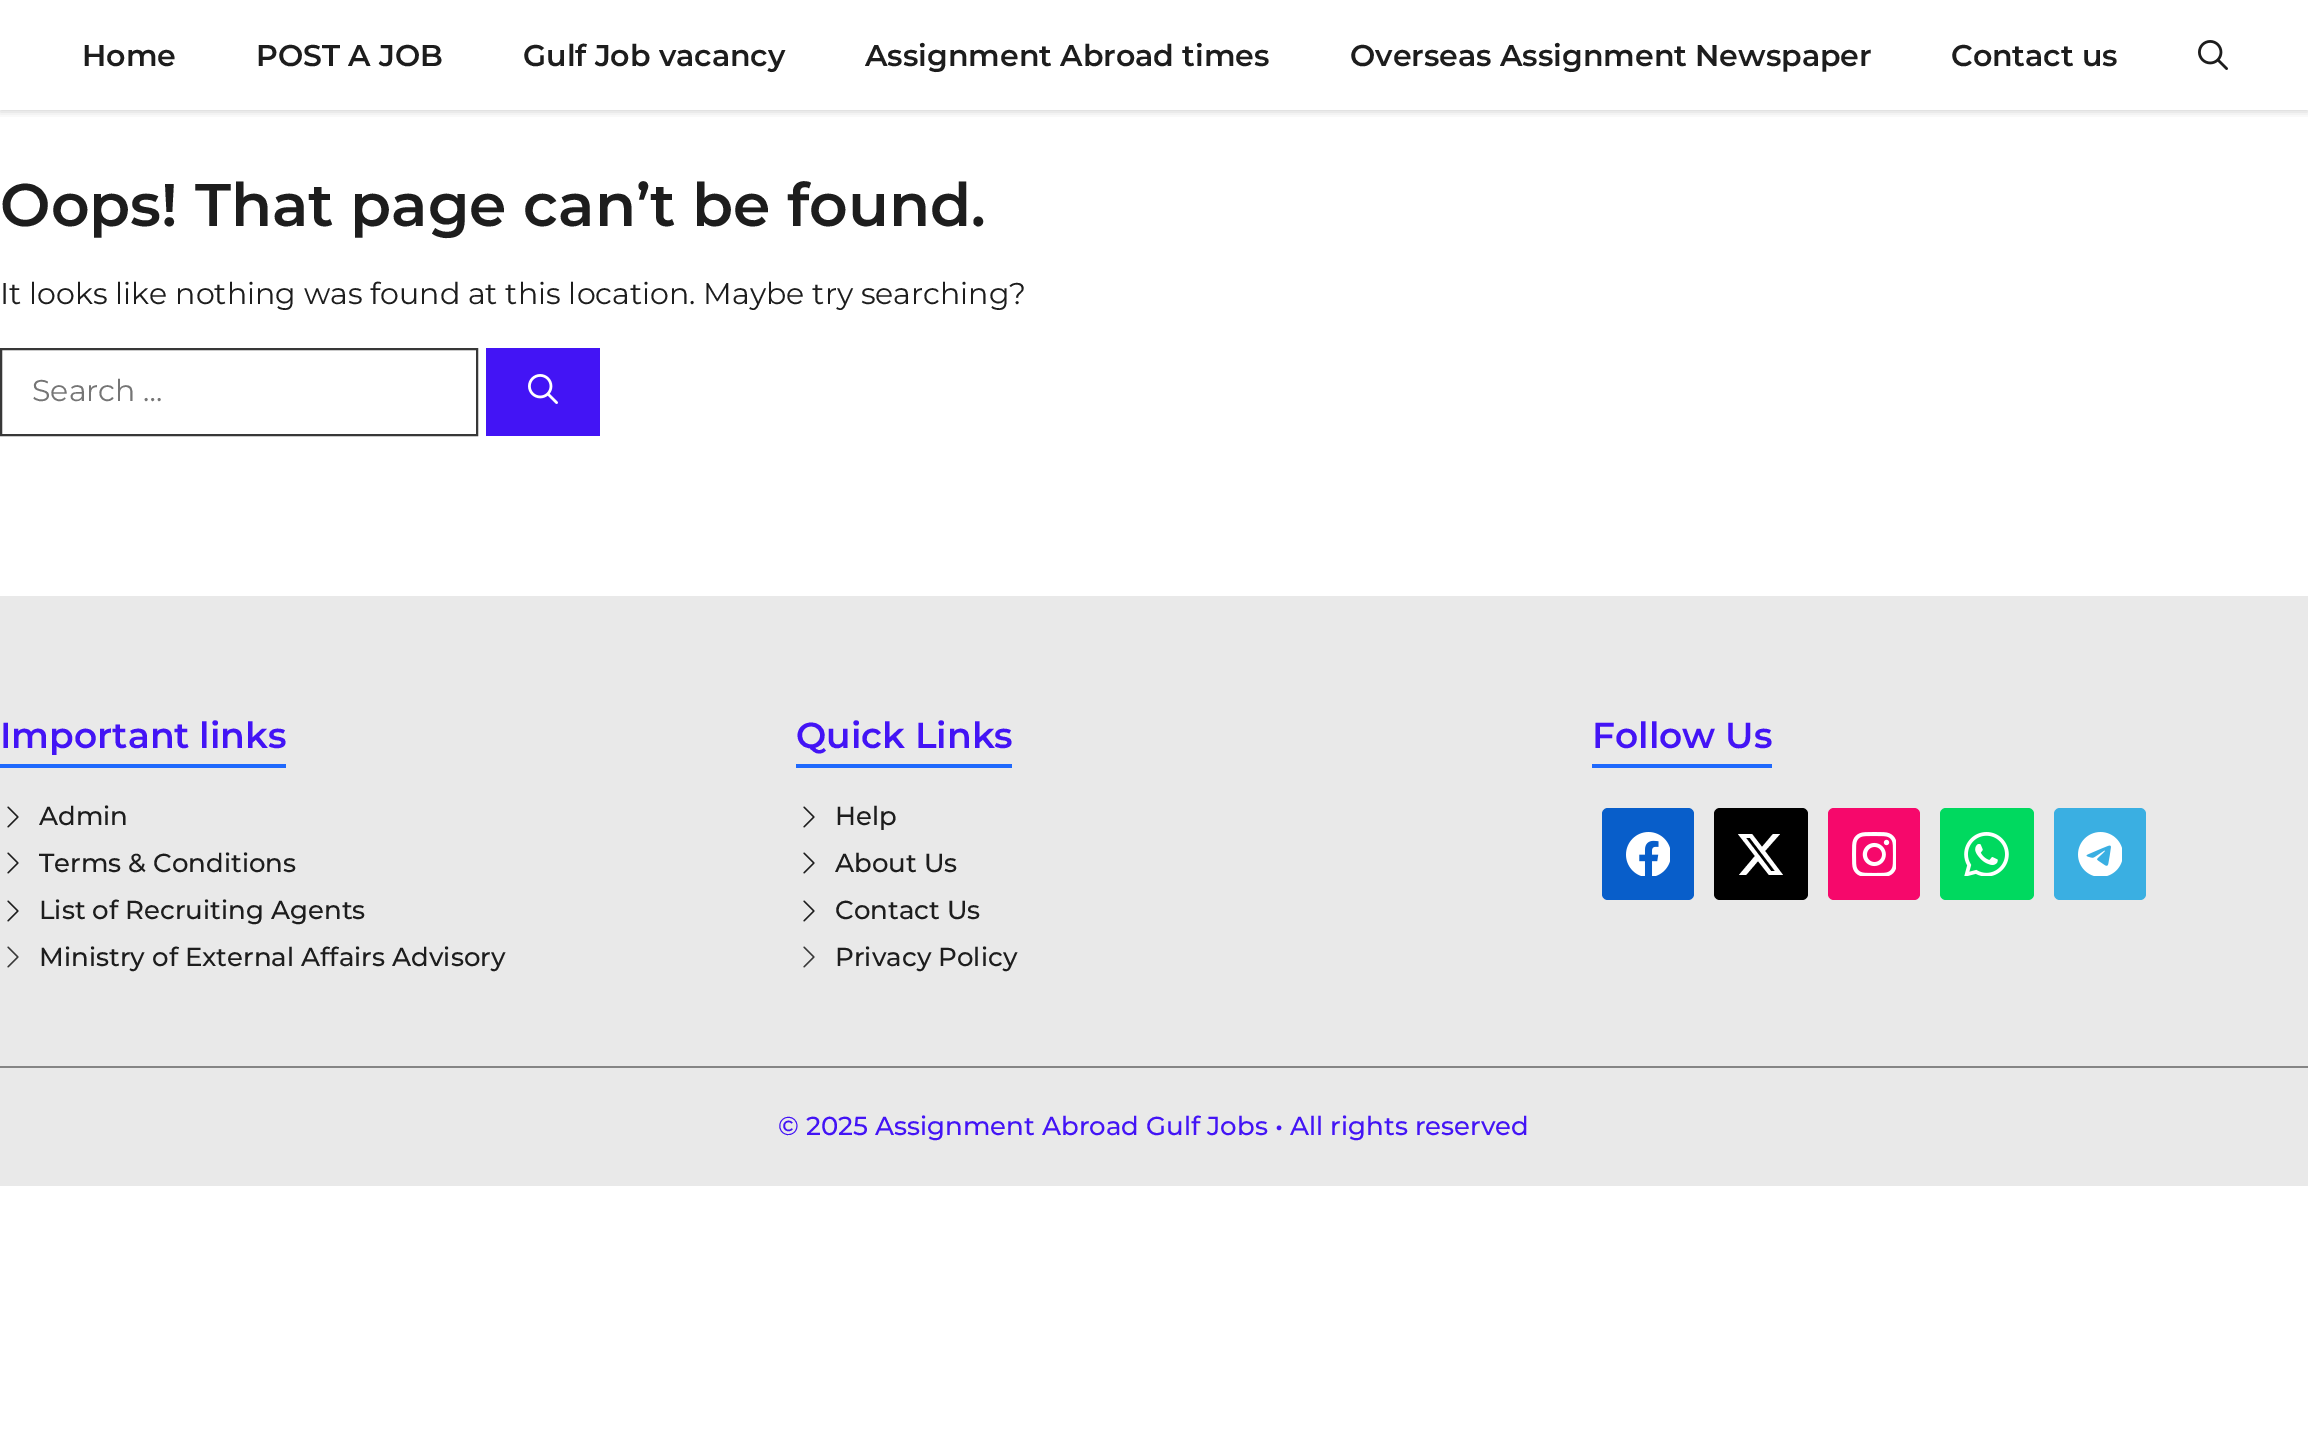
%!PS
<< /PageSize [2308 1454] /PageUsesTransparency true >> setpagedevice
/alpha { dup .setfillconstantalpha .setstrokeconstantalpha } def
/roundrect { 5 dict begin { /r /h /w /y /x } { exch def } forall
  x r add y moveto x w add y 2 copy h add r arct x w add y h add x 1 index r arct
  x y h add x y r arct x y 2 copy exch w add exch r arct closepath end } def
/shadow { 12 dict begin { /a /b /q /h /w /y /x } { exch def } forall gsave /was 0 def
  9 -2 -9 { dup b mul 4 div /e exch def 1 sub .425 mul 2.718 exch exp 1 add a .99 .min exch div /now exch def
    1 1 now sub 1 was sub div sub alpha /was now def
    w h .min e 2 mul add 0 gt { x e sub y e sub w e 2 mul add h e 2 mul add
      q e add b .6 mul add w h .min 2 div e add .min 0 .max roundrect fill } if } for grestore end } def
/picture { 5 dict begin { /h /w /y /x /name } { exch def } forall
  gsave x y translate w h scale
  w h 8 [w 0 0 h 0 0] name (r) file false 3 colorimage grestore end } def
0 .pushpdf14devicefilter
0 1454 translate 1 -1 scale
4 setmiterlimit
1 setgray
0 0 2308 1454 rectfill
gsave
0 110 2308 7 rectclip
0 setgray
0 2 2308 110 0 4 0.16 shadow
grestore
/Montserrat-SemiBold [30 0 0 -30 0 0] selectfont
0.114 setgray
82 66 moveto (Home) show
256 66 moveto (POST A JOB) show
523 66 moveto (Gulf Job vacancy) show
865 66 moveto (Assignment Abroad times) show
1350 66 moveto (Overseas Assignment Newspaper) show
1951 66 moveto (Contact us) show
(img1.rgb) 2198 40 30 30 picture
/Montserrat-SemiBold [60 0 0 -60 0 0] selectfont
0 226 moveto (Oops! That page can’t be found.) show
/Montserrat-Regular [30 0 0 -30 0 0] selectfont
0 304 moveto (It looks like nothing was found at this location. Maybe try searching?) show
0.22 setgray
2 setlinewidth
1 349 476 86 rectstroke
0.459 setgray
32 401 moveto (Search …) show
0.263 0.078 0.961 setrgbcolor
486 348 114 88 rectfill
(img2.rgb) 528 374 30 30 picture
0.914 setgray
0 596 2308 590 rectfill
0.522 setgray
0 1066 2308 2 rectfill
0.122 0.412 0.992 setrgbcolor
0 764 286 4 rectfill
/Montserrat-SemiBold [36 0 0 -36 0 0] selectfont
0.263 0.078 0.961 setrgbcolor
0 748 moveto (Important links) show
(img3.rgb) 7 806 12 22 picture
/Montserrat-Medium [26 0 0 -26 0 0] selectfont
0.114 setgray
39 825 moveto (Admin) show
(img3.rgb) 7 852 12 22 picture
39 872 moveto (Terms & Conditions) show
(img3.rgb) 7 900 12 22 picture
39 919 moveto (List of Recruiting Agents) show
(img4.rgb) 7 946 12 22 picture
39 966 moveto (Ministry of External Affairs Advisory) show
0.122 0.412 0.992 setrgbcolor
796 764 216 4 rectfill
/Montserrat-SemiBold [36 0 0 -36 0 0] selectfont
0.263 0.078 0.961 setrgbcolor
796 748 moveto (Quick Links) show
(img3.rgb) 803 806 12 22 picture
/Montserrat-Medium [26 0 0 -26 0 0] selectfont
0.114 setgray
835 825 moveto (Help) show
(img3.rgb) 803 852 12 22 picture
835 872 moveto (About Us) show
(img3.rgb) 803 900 12 22 picture
835 919 moveto (Contact Us) show
(img4.rgb) 803 946 12 22 picture
835 966 moveto (Privacy Policy) show
0.122 0.412 0.992 setrgbcolor
1592 764 180 4 rectfill
/Montserrat-SemiBold [36 0 0 -36 0 0] selectfont
0.263 0.078 0.961 setrgbcolor
1592 748 moveto (Follow Us) show
0.031 0.369 0.792 setrgbcolor
1602 808 92 92 6 roundrect fill
(img5.rgb) 1626 832 44 44 picture
0 setgray
1714 808 94 92 6 roundrect fill
1 setgray
newpath 1773 834 moveto 1780 834 lineto 1765 851 lineto 1783 875 lineto 1769 875 lineto 1758 861 lineto 1746 875 lineto 1739 875 lineto 1755 856 lineto 1738 834 lineto 1752 834 lineto 1762 847 lineto closepath 1771 871 moveto 1775 871 lineto 1750 838 lineto 1746 838 lineto closepath fill
0.965 0.031 0.42 setrgbcolor
1828 808 92 92 6 roundrect fill
(img6.rgb) 1852 832 44 44 picture
0 0.851 0.373 setrgbcolor
1940 808 94 92 6 roundrect fill
(img7.rgb) 1964 832 45 44 picture
0.227 0.686 0.886 setrgbcolor
2054 808 92 92 6 roundrect fill
(img8.rgb) 2078 832 44 44 picture
/Montserrat-Medium [26 0 0 -26 0 0] selectfont
0.263 0.078 0.961 setrgbcolor
778 1135 moveto (© 2025 Assignment Abroad Gulf Jobs • All rights reserved) show
.poppdf14devicefilter showpage
